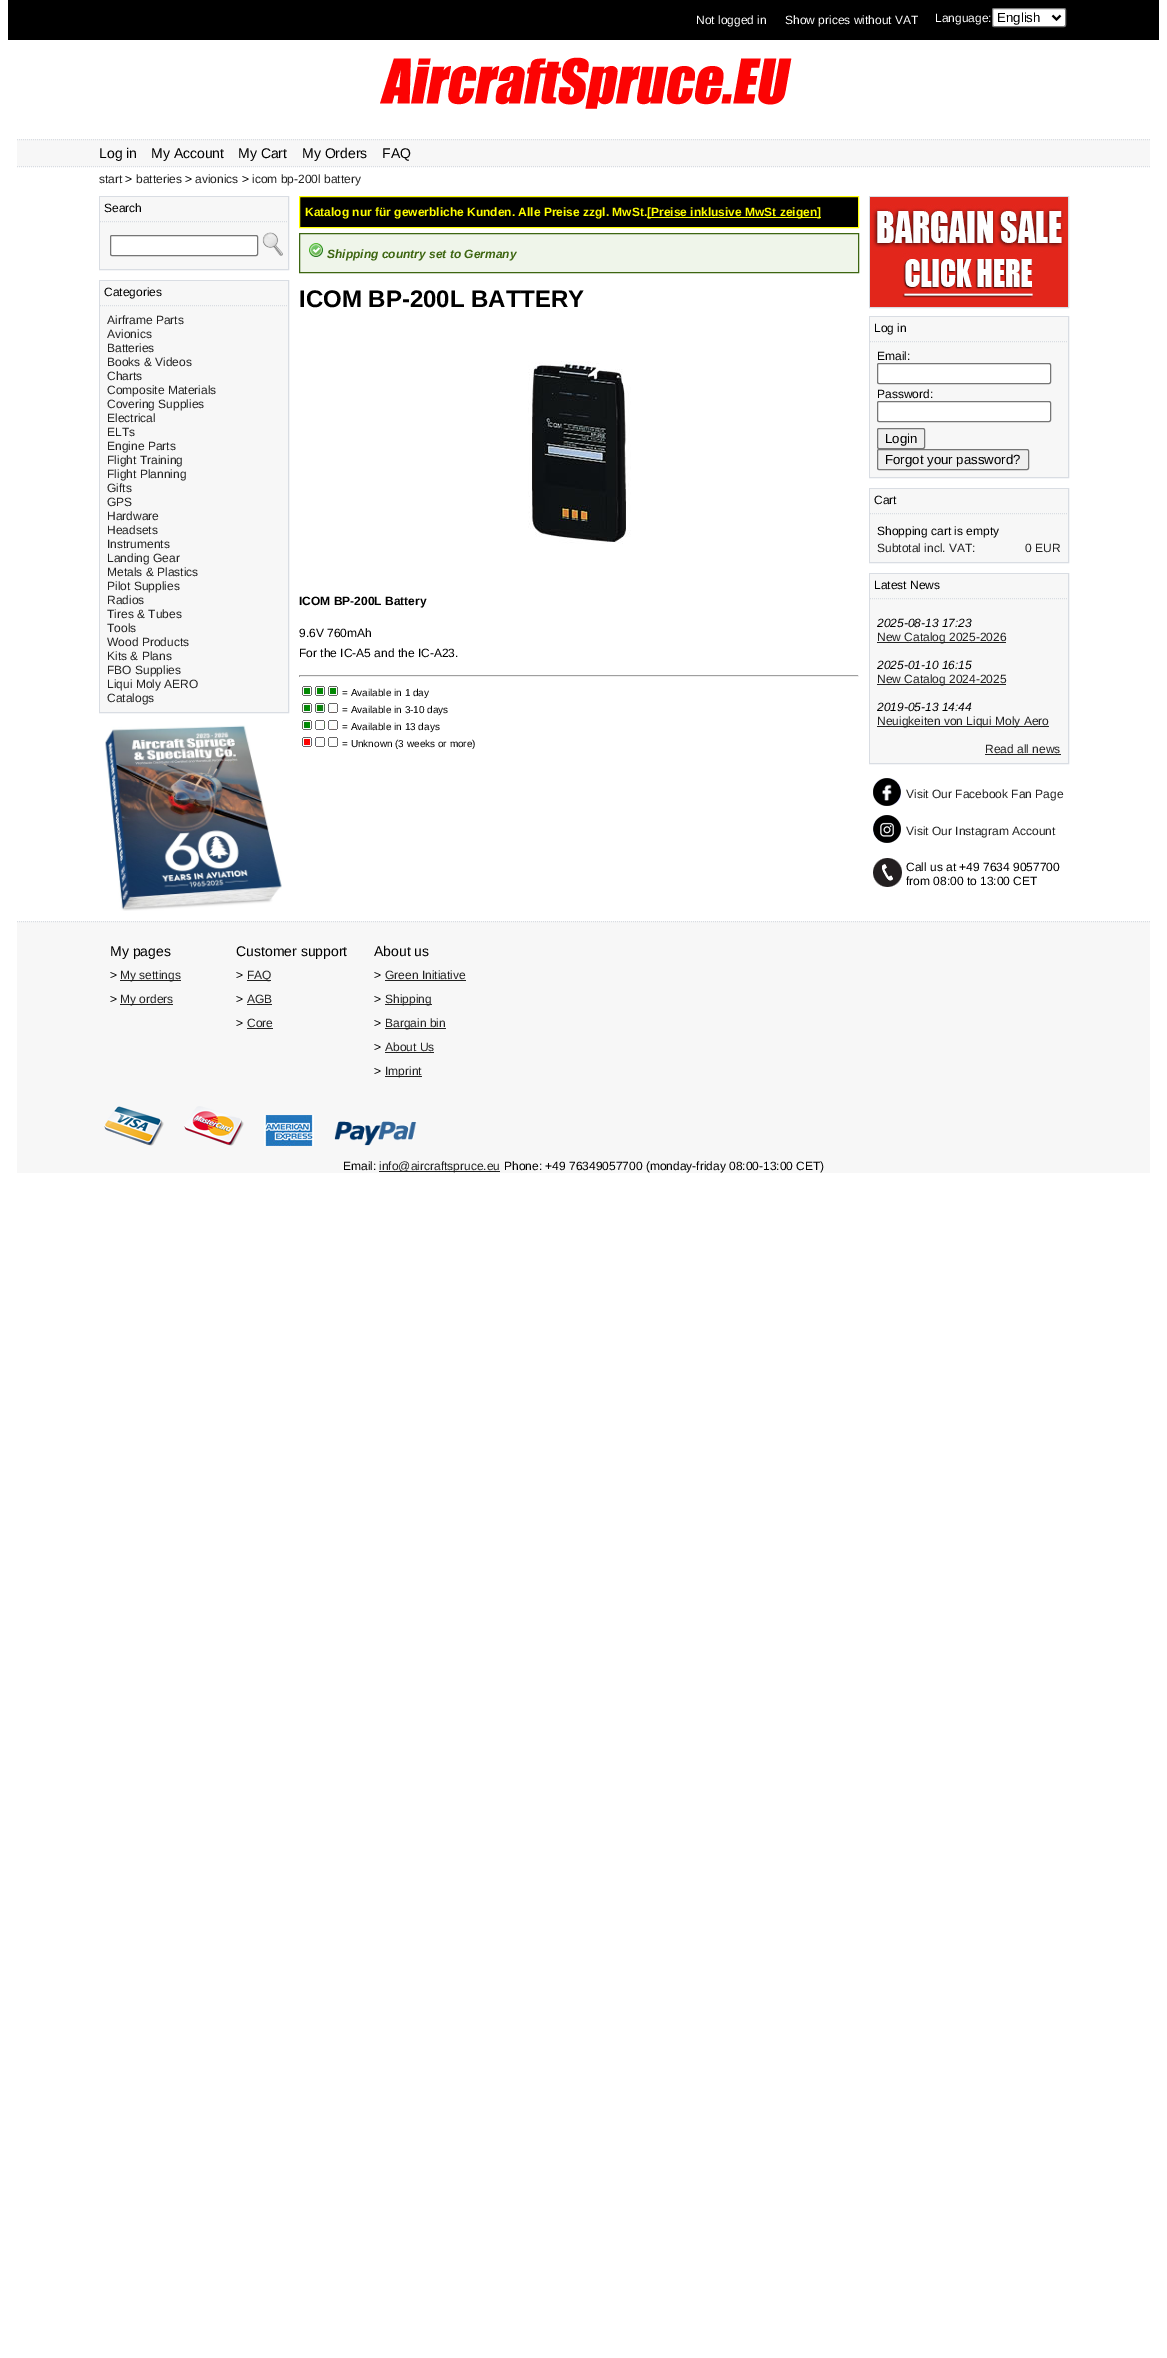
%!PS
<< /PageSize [1167 2358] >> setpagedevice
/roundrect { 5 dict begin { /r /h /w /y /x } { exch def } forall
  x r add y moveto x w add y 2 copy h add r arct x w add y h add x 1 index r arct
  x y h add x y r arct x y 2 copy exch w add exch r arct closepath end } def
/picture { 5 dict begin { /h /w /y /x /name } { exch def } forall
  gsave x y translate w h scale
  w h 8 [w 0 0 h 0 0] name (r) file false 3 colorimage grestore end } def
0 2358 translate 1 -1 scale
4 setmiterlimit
1 setgray
0 0 1167 2358 rectfill
0 setgray
8 0 1151 40 rectfill
/LiberationSans-Regular [12 0 0 -12 0 0] selectfont
1 setgray
696 24 moveto (Not logged in) show
785 24 moveto (Show prices without VAT) show
935 22 moveto (Language:) show
992.5 8.5 73 18 1.5 roundrect gsave fill grestore
0.463 setgray
stroke
0 setgray
2 setlinewidth
newpath 1052.5 15.5 moveto 1056.5 19.5 lineto 1060.5 15.5 lineto stroke
/LiberationSans-Regular [13.25 0 0 -13.25 0 0] selectfont
997 22 moveto (English) show
(img1.rgb) 380 57 412 52 picture
0.969 setgray
17 139 1133 28 rectfill
0.851 0.867 0.89 setrgbcolor
1 setlinewidth
[1 1] 0 setdash
newpath 17 139.5 moveto 1150 139.5 lineto stroke
newpath 17 166.5 moveto 1150 166.5 lineto stroke
/LiberationSans-Regular [14 0 0 -14 0 0] selectfont
0 setgray
99 158 moveto (Log in) show
151 158 moveto (My Account) show
238 158 moveto (My Cart) show
302 158 moveto (My Orders) show
382 158 moveto (FAQ) show
/LiberationSans-Regular [12 0 0 -12 0 0] selectfont
0.133 setgray
99 183 moveto (start) show
0 setgray
125 183 moveto (>) show
0.133 setgray
136 183 moveto (batteries) show
0 setgray
185 183 moveto (>) show
0.133 setgray
195 183 moveto (avionics) show
0 setgray
242 183 moveto (>) show
0.133 setgray
252 183 moveto (icom bp-200l battery) show
0.851 0.867 0.89 setrgbcolor
[] 0 setdash
99.5 196.5 189 73 rectstroke
0.969 setgray
100 197 188 72 rectfill
0.851 0.867 0.89 setrgbcolor
[1 1] 0 setdash
newpath 100 221.5 moveto 288 221.5 lineto stroke
0 setgray
104 212 moveto (Search) show
1 setgray
110.5 235.5 147 20 1.5 roundrect gsave fill grestore
0.463 setgray
[] 0 setdash
stroke
(img2.rgb) 262 232 21 24 picture
0.851 0.867 0.89 setrgbcolor
99.5 280.5 189 432 rectstroke
0.969 setgray
100 281 188 431 rectfill
0.851 0.867 0.89 setrgbcolor
[1 1] 0 setdash
newpath 100 305.5 moveto 288 305.5 lineto stroke
0 setgray
104 296 moveto (Categories) show
0.133 setgray
107 324 moveto (Airframe Parts) show
107 338 moveto (Avionics) show
107 352 moveto (Batteries) show
107 366 moveto (Books & Videos) show
107 380 moveto (Charts) show
107 394 moveto (Composite Materials) show
107 408 moveto (Covering Supplies) show
107 422 moveto (Electrical) show
107 436 moveto (ELTs) show
107 450 moveto (Engine Parts) show
107 464 moveto (Flight Training) show
107 478 moveto (Flight Planning) show
107 492 moveto (Gifts) show
107 506 moveto (GPS) show
107 520 moveto (Hardware) show
107 534 moveto (Headsets) show
107 548 moveto (Instruments) show
107 562 moveto (Landing Gear) show
107 576 moveto (Metals & Plastics) show
107 590 moveto (Pilot Supplies) show
107 604 moveto (Radios) show
107 618 moveto (Tires & Tubes) show
107 632 moveto (Tools) show
107 646 moveto (Wood Products) show
107 660 moveto (Kits & Plans) show
107 674 moveto (FBO Supplies) show
107 688 moveto (Liqui Moly AERO) show
107 702 moveto (Catalogs) show
(img3.rgb) 105 725 177 186 picture
0 setgray
newpath 299.5 196.5 moveto 858.5 196.5 lineto 858.5 227.5 lineto 299.5 227.5 lineto closepath gsave fill grestore
1 1 0 setrgbcolor
[] 0 setdash
stroke
/LiberationSans-Bold [12 0 0 -12 0 0] selectfont
305 216 moveto (Katalog nur für gewerbliche Kunden. Alle Preise zzgl. MwSt.) show
647 217 174 1 rectfill
647 216 moveto ([Preise inklusive MwSt zeigen]) show
0.937 0.961 0.918 setrgbcolor
newpath 299.5 233.5 moveto 858.5 233.5 lineto 858.5 272.5 lineto 299.5 272.5 lineto closepath gsave fill grestore
0.239 0.4 0.067 setrgbcolor
stroke
(img4.rgb) 309 243 14 14 picture
/LiberationSans-BoldItalic [12 0 0 -12 0 0] selectfont
327 258 moveto (Shipping country set to Germany) show
/LiberationSans-Bold [24 0 0 -24 0 0] selectfont
0 setgray
299 307 moveto (ICOM BP-200L BATTERY) show
(img5.rgb) 528 361 103 183 picture
/LiberationSans-Bold [12 0 0 -12 0 0] selectfont
299 605 moveto (ICOM BP-200L Battery) show
/LiberationSans-Regular [12 0 0 -12 0 0] selectfont
299 637 moveto (9.6V 760mAh) show
299 657 moveto (For the IC-A5 and the IC-A23.) show
0.624 setgray
299 675 560 1 rectfill
0.933 setgray
858 675 1 2 rectfill
299 676 560 1 rectfill
0.624 setgray
299 675 1 2 rectfill
(img6.rgb) 302 686 36 10 picture
/LiberationSans-Regular [10 0 0 -10 0 0] selectfont
0 setgray
342 696 moveto (= Available in 1 day) show
(img7.rgb) 302 703 36 10 picture
342 713 moveto (= Available in 3-10 days) show
(img8.rgb) 302 720 36 10 picture
342 730 moveto (= Available in 13 days) show
(img9.rgb) 302 737 36 10 picture
342 747 moveto (= Unknown \(3 weeks or more\)) show
0.851 0.867 0.89 setrgbcolor
869.5 196.5 199 111 rectstroke
(img10.rgb) 870 197 198 110 picture
869.5 316.5 199 161 rectstroke
0.969 setgray
870 317 198 160 rectfill
0.851 0.867 0.89 setrgbcolor
[1 1] 0 setdash
newpath 870 341.5 moveto 1068 341.5 lineto stroke
/LiberationSans-Regular [12 0 0 -12 0 0] selectfont
0 setgray
874 332 moveto (Log in) show
877 360 moveto (Email:) show
1 setgray
877.5 363.5 173 20 1.5 roundrect gsave fill grestore
0.463 setgray
[] 0 setdash
stroke
0 setgray
877 398 moveto (Password:) show
1 setgray
877.5 401.5 173 20 1.5 roundrect gsave fill grestore
0.463 setgray
stroke
0.937 setgray
877.5 428.5 47 20 1.5 roundrect gsave fill grestore
0.463 setgray
stroke
/LiberationSans-Regular [13.25 0 0 -13.25 0 0] selectfont
0 setgray
885 443 moveto (Login) show
0.937 setgray
877.5 449.5 151 20 1.5 roundrect gsave fill grestore
0.463 setgray
stroke
0 setgray
885 464 moveto (Forgot your password?) show
0.851 0.867 0.89 setrgbcolor
869.5 488.5 199 74 rectstroke
0.969 setgray
870 489 198 73 rectfill
0.851 0.867 0.89 setrgbcolor
[1 1] 0 setdash
newpath 870 513.5 moveto 1068 513.5 lineto stroke
/LiberationSans-Regular [12 0 0 -12 0 0] selectfont
0 setgray
874 504 moveto (Cart) show
877 535 moveto (Shopping cart is empty) show
0.133 setgray
877 552 moveto (Subtotal incl. VAT:) show
1025 552 moveto (0 EUR) show
0.851 0.867 0.89 setrgbcolor
[] 0 setdash
869.5 573.5 199 190 rectstroke
0.969 setgray
870 574 198 189 rectfill
0.851 0.867 0.89 setrgbcolor
[1 1] 0 setdash
newpath 870 598.5 moveto 1068 598.5 lineto stroke
0 setgray
874 589 moveto (Latest News) show
/LiberationSans-Italic [12 0 0 -12 0 0] selectfont
877 627 moveto (2025-08-13 17:23) show
0.133 setgray
877 642 129 1 rectfill
/LiberationSans-Regular [12 0 0 -12 0 0] selectfont
877 641 moveto (New Catalog 2025-2026) show
/LiberationSans-Italic [12 0 0 -12 0 0] selectfont
0 setgray
877 669 moveto (2025-01-10 16:15) show
0.133 setgray
877 684 129 1 rectfill
/LiberationSans-Regular [12 0 0 -12 0 0] selectfont
877 683 moveto (New Catalog 2024-2025) show
/LiberationSans-Italic [12 0 0 -12 0 0] selectfont
0 setgray
877 711 moveto (2019-05-13 14:44) show
0.133 setgray
877 726 172 1 rectfill
/LiberationSans-Regular [12 0 0 -12 0 0] selectfont
877 725 moveto (Neuigkeiten von Liqui Moly Aero) show
985 753 moveto (Read all news) show
985 754 76 1 rectfill
(img11.rgb) 873 778 28 28 picture
906 798 moveto (Visit Our Facebook Fan Page) show
(img12.rgb) 873 815 28 28 picture
906 835 moveto (Visit Our Instagram Account) show
(img13.rgb) 873 858 29 29 picture
0 setgray
906 871 moveto (Call us at +49 7634 9057700) show
906 885 moveto (from 08:00 to 13:00 CET) show
0.969 setgray
17 921 1133 252 rectfill
0.851 0.867 0.89 setrgbcolor
newpath 17 921.5 moveto 1150 921.5 lineto stroke
/LiberationSans-Regular [14 0 0 -14 0 0] selectfont
0 setgray
110 956 moveto (My pages) show
236 956 moveto (Customer support) show
374 956 moveto (About us) show
/LiberationSans-Regular [12 0 0 -12 0 0] selectfont
110 979 moveto (>) show
0.133 setgray
120 980 61 1 rectfill
120 979 moveto (My settings) show
0 setgray
236 979 moveto (>) show
0.133 setgray
247 980 24 1 rectfill
247 979 moveto (FAQ) show
0 setgray
374 979 moveto (>) show
0.133 setgray
385 979 moveto (Green Initiative) show
385 980 81 1 rectfill
0 setgray
110 1003 moveto (>) show
0.133 setgray
120 1004 53 1 rectfill
120 1003 moveto (My orders) show
0 setgray
236 1003 moveto (>) show
0.133 setgray
247 1003 moveto (AGB) show
247 1004 25 1 rectfill
0 setgray
374 1003 moveto (>) show
0.133 setgray
385 1004 47 1 rectfill
385 1003 moveto (Shipping) show
0 setgray
236 1027 moveto (>) show
0.133 setgray
247 1027 moveto (Core) show
247 1028 26 1 rectfill
0 setgray
374 1027 moveto (>) show
0.133 setgray
385 1028 61 1 rectfill
385 1027 moveto (Bargain bin) show
0 setgray
374 1051 moveto (>) show
0.133 setgray
385 1051 moveto (About Us) show
385 1052 49 1 rectfill
0 setgray
374 1075 moveto (>) show
0.133 setgray
385 1076 37 1 rectfill
385 1075 moveto (Imprint) show
(img14.rgb) 104 1106 60 40 picture
(img15.rgb) 184 1106 60 40 picture
(img16.rgb) 264 1115 50 31 picture
(img17.rgb) 334 1121 83 25 picture
0 setgray
343 1170 moveto (Email:) show
0.133 setgray
379 1171 121 1 rectfill
379 1170 moveto (info@aircraftspruce.eu) show
0 setgray
504 1170 moveto (Phone: +49 76349057700 \(monday-friday 08:00-13:00 CET\)) show
showpage
